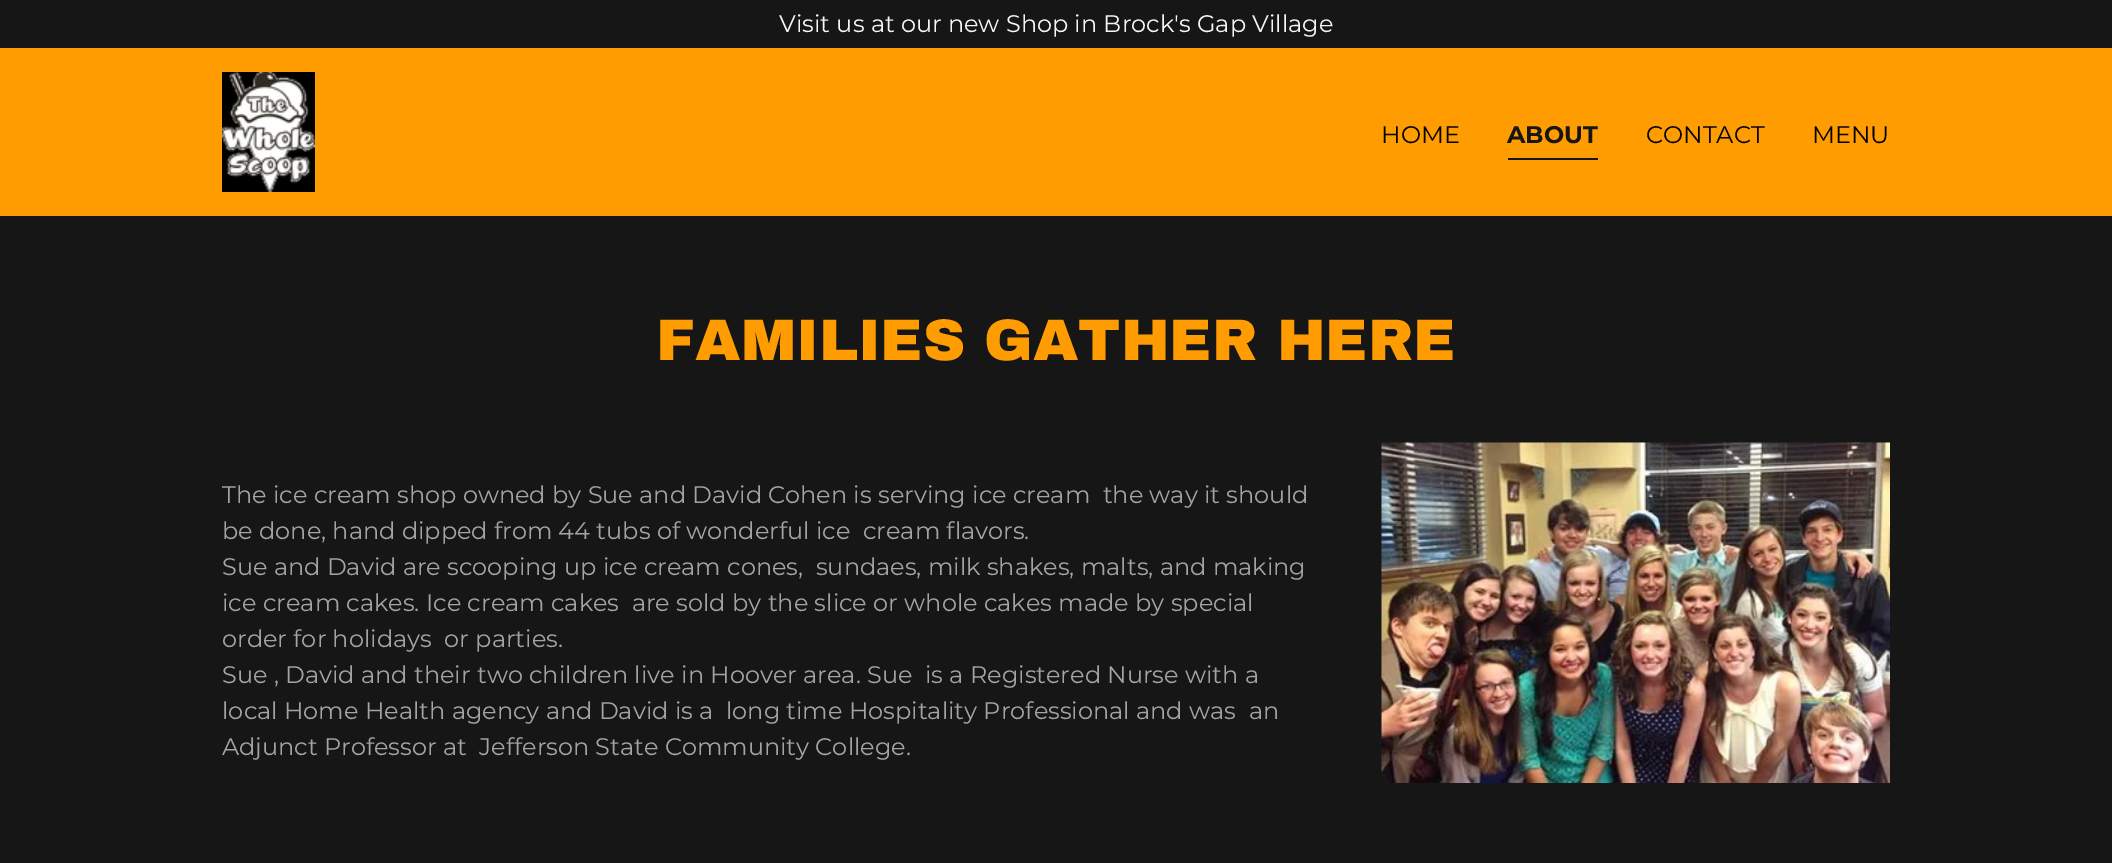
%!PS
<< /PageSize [2112 863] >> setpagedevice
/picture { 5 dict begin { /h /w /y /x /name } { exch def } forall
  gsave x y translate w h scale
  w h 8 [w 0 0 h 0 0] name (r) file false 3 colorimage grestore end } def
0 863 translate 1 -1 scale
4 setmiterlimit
0.086 setgray
0 0 2112 863 rectfill
1 0.612 0.008 setrgbcolor
0 48 2112 168 rectfill
/Montserrat-Regular [24 0 0 -24 0 0] selectfont
0.969 setgray
779 32 moveto (Visit us at our new Shop in Brock's Gap Village) show
(img1.rgb) 222 72 93 120 picture
0 setgray
1381 143 moveto (HOME) show
0.086 setgray
1508 158 90 2 rectfill
/Montserrat-Bold [24 0 0 -24 0 0] selectfont
1507 143 moveto (ABOUT) show
/Montserrat-Regular [24 0 0 -24 0 0] selectfont
0 setgray
1646 143 moveto (CONTACT) show
1812 143 moveto (MENU) show
/ArchivoBlack-Black [58.5 0 0 -58.5 0 0] selectfont
1 0.612 0.008 setrgbcolor
656 360 moveto (FAMILIES GATHER HERE) show
/Montserrat-Regular [24 0 0 -24 0 0] selectfont
0.643 setgray
222 503 moveto (The ice cream shop owned by Sue and David Cohen is serving ice cream  the way it should) show
222 539 moveto (be done, hand dipped from 44 tubs of wonderful ice  cream flavors.) show
222 575 moveto (Sue and David are scooping up ice cream cones,  sundaes, milk shakes, malts, and making) show
222 611 moveto (ice cream cakes. Ice cream cakes  are sold by the slice or whole cakes made by special) show
222 647 moveto (order for holidays  or parties.) show
222 683 moveto (Sue , David and their two children live in Hoover area. Sue  is a Registered Nurse with a) show
222 719 moveto (local Home Health agency and David is a  long time Hospitality Professional and was  an) show
222 755 moveto (Adjunct Professor at  Jefferson State Community College.) show
(img2.rgb) 1381 442 509 341 picture
showpage
